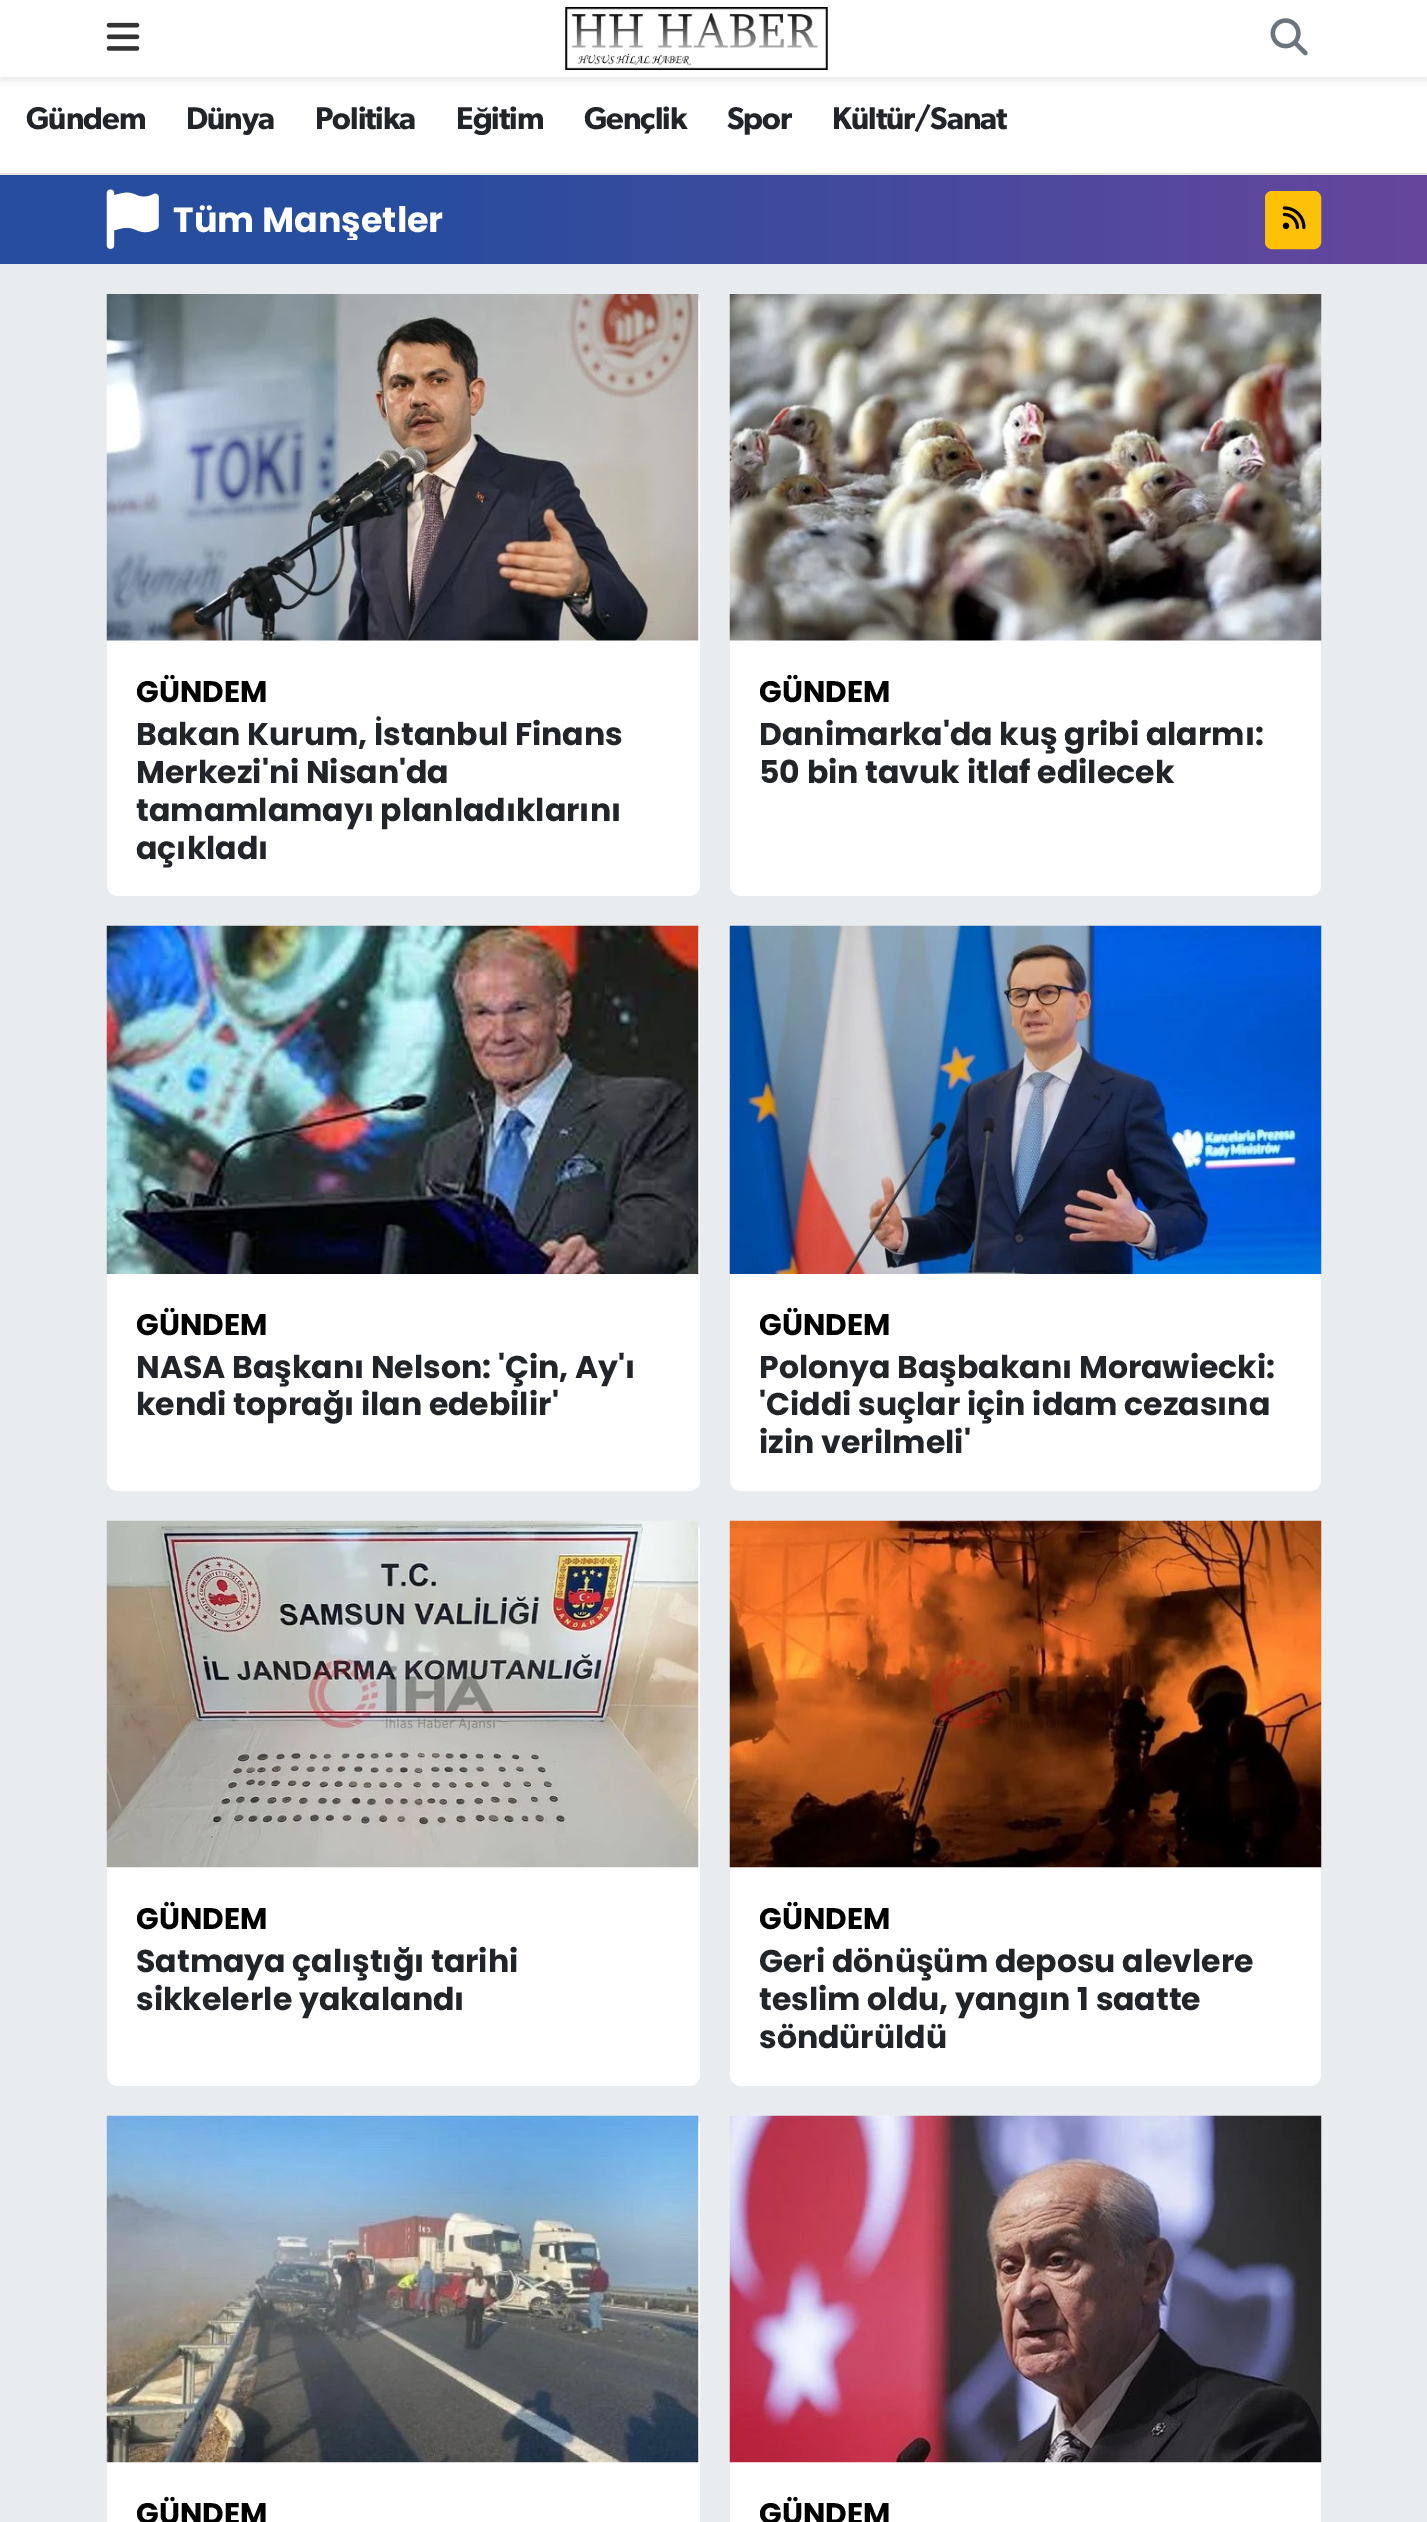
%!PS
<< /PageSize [1427 2522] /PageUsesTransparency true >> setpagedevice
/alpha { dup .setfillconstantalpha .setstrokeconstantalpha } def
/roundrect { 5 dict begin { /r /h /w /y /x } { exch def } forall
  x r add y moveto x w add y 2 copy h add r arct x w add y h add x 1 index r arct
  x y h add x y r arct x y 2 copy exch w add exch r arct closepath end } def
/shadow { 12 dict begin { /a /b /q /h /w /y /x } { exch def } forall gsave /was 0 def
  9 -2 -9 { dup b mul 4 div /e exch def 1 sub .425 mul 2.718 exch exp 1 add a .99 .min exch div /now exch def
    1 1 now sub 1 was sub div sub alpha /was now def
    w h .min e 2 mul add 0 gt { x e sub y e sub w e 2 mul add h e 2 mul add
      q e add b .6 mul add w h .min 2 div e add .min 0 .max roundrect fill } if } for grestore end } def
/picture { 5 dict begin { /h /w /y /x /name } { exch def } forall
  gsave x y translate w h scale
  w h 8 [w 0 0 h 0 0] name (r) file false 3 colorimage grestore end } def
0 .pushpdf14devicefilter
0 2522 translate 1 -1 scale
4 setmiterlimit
0.914 0.925 0.937 setrgbcolor
0 0 1427 2522 rectfill
1 setgray
0 77 1427 96 rectfill
0 setgray
0 4 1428 77 0 3.5 0.07 shadow
1 setgray
0 0 1427 77 rectfill
(img1.rgb) 106 22 34 29 picture
(img2.rgb) 565 7 263 63 picture
(img3.rgb) 1270 18 38 38 picture
0.902 setgray
0 173 1427 2 rectfill
/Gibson-SemiBold [31.5 0 0 -31.5 0 0] selectfont
0.129 0.145 0.161 setrgbcolor
26 129 moveto -1 0 (Gündem) ashow
186 129 moveto -1 0 (Dünya) ashow
315 129 moveto -1 0 (Politika) ashow
456 129 moveto -1 0 (Eğitim) ashow
584 129 moveto -1 0 (Gençlik) ashow
727 129 moveto -1 0 (Spor) ashow
832 129 moveto -1 0 (Kültür/Sanat) ashow
gsave newpath 0 175 moveto 1427 175 lineto 1427 264 lineto 0 264 lineto closepath clip newpath
<< /ShadingType 2 /ColorSpace /DeviceRGB /Coords [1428 220 0 220] /Extend [true true] /Function << /FunctionType 3 /Domain [0 1] /Functions [<< /FunctionType 2 /Domain [0 1] /C0 [0.4 0.275 0.612] /C1 [0.153 0.302 0.62] /N 1 >> << /FunctionType 2 /Domain [0 1] /C0 [0.153 0.302 0.62] /C1 [0.153 0.302 0.62] /N 1 >>] /Bounds [0.72] /Encode [0 1 0 1] >> >> shfill grestore
(img4.rgb) 106 189 53 60 picture
gsave
173 198 272 42 rectclip
/Poppins-Bold [35 0 0 -35 0 0] selectfont
1 setgray
173 232 moveto (Tüm Manşetler) show
grestore
1 0.757 0.027 setrgbcolor
1266 192 54 56 6 roundrect gsave fill grestore
2 setlinewidth
stroke
(img5.rgb) 1282 206 24 24 picture
1 setgray
107 294 593 602 11 roundrect fill
(img6.rgb) 106 294 593 347 picture
/Poppins-Bold [29.75 0 0 -29.75 0 0] selectfont
0 setgray
136 702 moveto (GÜNDEM) show
/Poppins-Bold [31.5 0 0 -31.5 0 0] selectfont
0.129 0.145 0.161 setrgbcolor
136 745 moveto (Bakan Kurum, İstanbul Finans) show
136 783 moveto (Merkezi'ni Nisan'da) show
136 821 moveto (tamamlamayı planladıklarını) show
136 859 moveto (açıkladı) show
1 setgray
730 294 591 602 11 roundrect fill
(img7.rgb) 729 294 593 347 picture
/Poppins-Bold [29.75 0 0 -29.75 0 0] selectfont
0 setgray
759 702 moveto (GÜNDEM) show
/Poppins-Bold [31.5 0 0 -31.5 0 0] selectfont
0.129 0.145 0.161 setrgbcolor
759 745 moveto (Danimarka'da kuş gribi alarmı:) show
759 783 moveto (50 bin tavuk itlaf edilecek) show
1 setgray
107 926 593 565 11 roundrect fill
(img8.rgb) 106 925 593 349 picture
/Poppins-Bold [29.75 0 0 -29.75 0 0] selectfont
0 setgray
136 1335 moveto (GÜNDEM) show
/Poppins-Bold [31.5 0 0 -31.5 0 0] selectfont
0.129 0.145 0.161 setrgbcolor
136 1378 moveto (NASA Başkanı Nelson: 'Çin, Ay'ı) show
136 1415 moveto (kendi toprağı ilan edebilir') show
1 setgray
730 926 591 565 11 roundrect fill
(img9.rgb) 729 925 593 349 picture
/Poppins-Bold [29.75 0 0 -29.75 0 0] selectfont
0 setgray
759 1335 moveto (GÜNDEM) show
/Poppins-Bold [31.5 0 0 -31.5 0 0] selectfont
0.129 0.145 0.161 setrgbcolor
759 1378 moveto (Polonya Başbakanı Morawiecki:) show
759 1415 moveto ('Ciddi suçlar için idam cezasına) show
759 1453 moveto (izin verilmeli') show
1 setgray
107 1521 593 565 11 roundrect fill
(img10.rgb) 106 1520 593 348 picture
/Poppins-Bold [29.75 0 0 -29.75 0 0] selectfont
0 setgray
136 1929 moveto (GÜNDEM) show
/Poppins-Bold [31.5 0 0 -31.5 0 0] selectfont
0.129 0.145 0.161 setrgbcolor
136 1972 moveto (Satmaya çalıştığı tarihi) show
136 2010 moveto (sikkelerle yakalandı) show
1 setgray
730 1521 591 565 11 roundrect fill
(img11.rgb) 729 1520 593 348 picture
/Poppins-Bold [29.75 0 0 -29.75 0 0] selectfont
0 setgray
759 1929 moveto (GÜNDEM) show
/Poppins-Bold [31.5 0 0 -31.5 0 0] selectfont
0.129 0.145 0.161 setrgbcolor
759 1972 moveto (Geri dönüşüm deposu alevlere) show
759 2010 moveto (teslim oldu, yangın 1 saatte) show
759 2048 moveto (söndürüldü) show
1 setgray
107 2116 593 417 11 roundrect fill
(img12.rgb) 106 2115 593 348 picture
/Poppins-Bold [29.75 0 0 -29.75 0 0] selectfont
0 setgray
136 2524 moveto (GÜNDEM) show
1 setgray
730 2462 591 60 rectfill
(img13.rgb) 729 2115 593 348 picture
0 setgray
759 2524 moveto (GÜNDEM) show
.poppdf14devicefilter showpage
